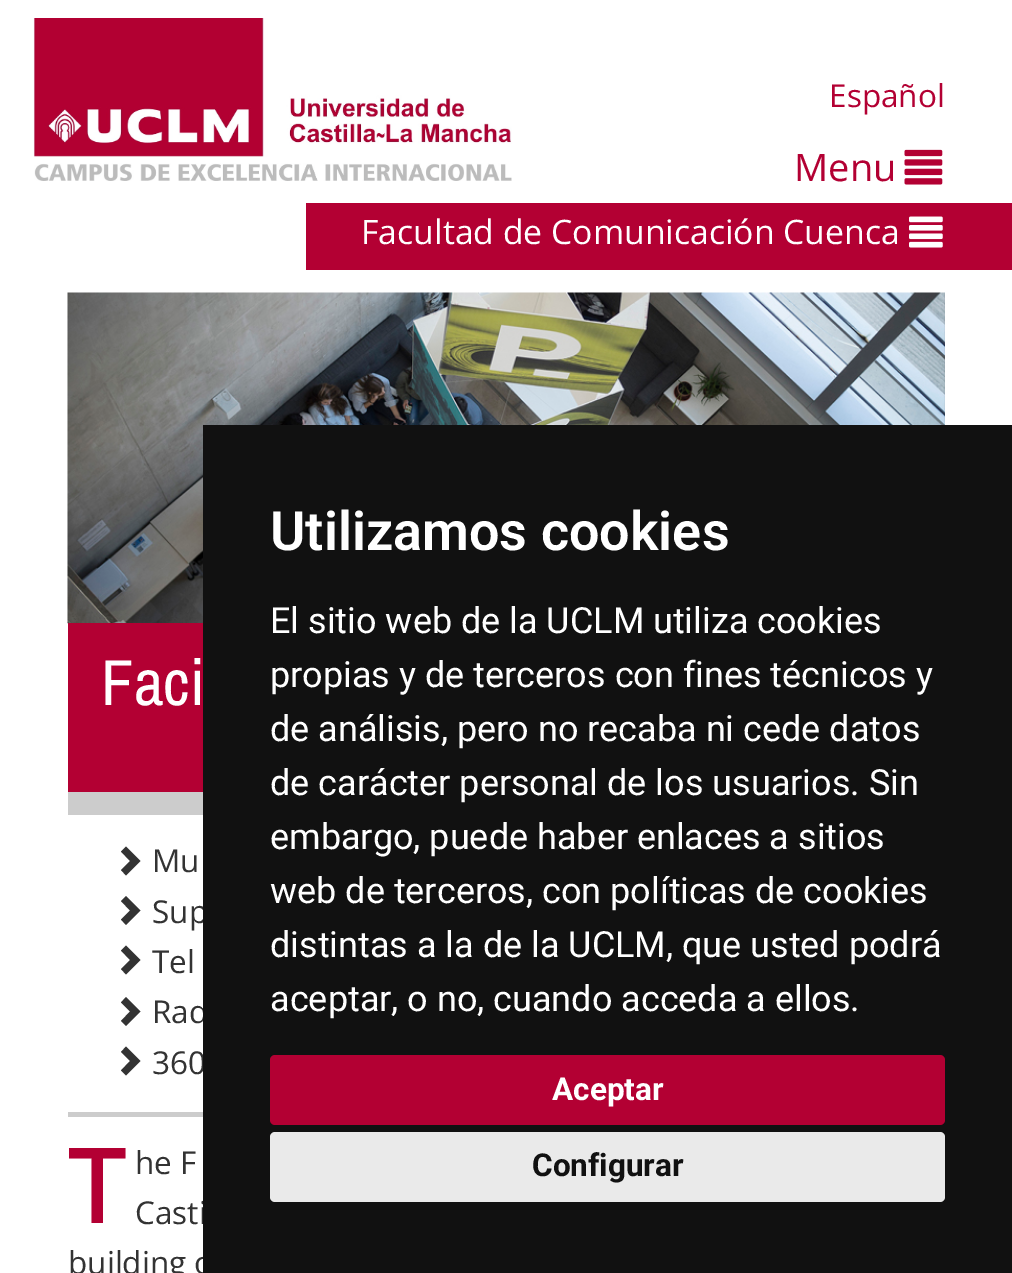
%!PS
<< /PageSize [1012 1273] >> setpagedevice
/roundrect { 5 dict begin { /r /h /w /y /x } { exch def } forall
  x r add y moveto x w add y 2 copy h add r arct x w add y h add x 1 index r arct
  x y h add x y r arct x y 2 copy exch w add exch r arct closepath end } def
/picture { 5 dict begin { /h /w /y /x /name } { exch def } forall
  gsave x y translate w h scale
  w h 8 [w 0 0 h 0 0] name (r) file false 3 colorimage grestore end } def
0 1273 translate 1 -1 scale
4 setmiterlimit
1 setgray
0 0 1012 1273 rectfill
(img1.rgb) 33 18 479 163 picture
/OpenSans-Regular [31.5 0 0 -31.5 0 0] selectfont
0.702 0 0.2 setrgbcolor
829 107 moveto (Español) show
/OpenSans-Regular [38 0 0 -38 0 0] selectfont
794 181 moveto (Menu) show
(img2.rgb) 904 149 39 36 picture
306 203 706 67 rectfill
/OpenSans-Regular [33.75 0 0 -33.75 0 0] selectfont
1 setgray
361 244 moveto (Facultad de Comunicación Cuenca) show
(img3.rgb) 909 216 34 32 picture
(img4.rgb) 67 292 878 332 picture
0.702 0 0.2 setrgbcolor
68 623 135 169 rectfill
/ArchivoNarrow-Regular [65 0 0 -65 0 0] selectfont
1 setgray
101 705 moveto (Faci) show
0.8 setgray
68 792 135 23 rectfill
68 1112 135 5 rectfill
0.2 setgray
newpath 140.5 861 moveto 126 875.5 lineto 121 870 lineto 130 861 lineto 121 851.5 lineto 126 846.5 lineto closepath fill
/OpenSans-Regular [31.5 0 0 -31.5 0 0] selectfont
152 872 moveto (Mu) show
newpath 140.5 910.5 moveto 126 925 lineto 121 919.5 lineto 130 910.5 lineto 121 901 lineto 126 896 lineto closepath fill
152 923 moveto (Sup) show
newpath 140.5 960 moveto 126 974.5 lineto 121 969 lineto 130 960 lineto 121 950.5 lineto 126 945.5 lineto closepath fill
152 973 moveto (Tel) show
newpath 140.5 1011.5 moveto 126 1026 lineto 121 1021 lineto 130 1011.5 lineto 121 1002.5 lineto 126 997 lineto closepath fill
152 1023 moveto (Rad) show
newpath 140.5 1061 moveto 126 1075.5 lineto 121 1070.5 lineto 130 1061 lineto 121 1052 lineto 126 1046.5 lineto closepath fill
152 1074 moveto (360) show
/OpenSans-Bold [101 0 0 -101 0 0] selectfont
0.702 0 0.2 setrgbcolor
68 1223 moveto (T) show
/OpenSans-Regular [31.5 0 0 -31.5 0 0] selectfont
0.2 setgray
135 1174 moveto (he F) show
135 1224 moveto (Casti) show
68 1274 moveto (building o) show
0.067 setgray
203 425 809 848 rectfill
/Roboto-SemiBold [54 0 0 -54 0 0] selectfont
1 setgray
270 550 moveto (Utilizamos cookies) show
/Roboto-Regular [36 0 0 -36 0 0] selectfont
270 633 moveto (El sitio web de la UCLM utiliza cookies) show
270 687 moveto (propias y de terceros con fines técnicos y) show
270 741 moveto (de análisis, pero no recaba ni cede datos) show
270 795 moveto (de carácter personal de los usuarios. Sin) show
270 849 moveto (embargo, puede haber enlaces a sitios) show
270 903 moveto (web de terceros, con políticas de cookies) show
270 957 moveto (distintas a la de la UCLM, que usted podrá) show
270 1011 moveto (aceptar, o no, cuando acceda a ellos.) show
0.702 0 0.2 setrgbcolor
270 1055 675 70 5 roundrect fill
/Roboto-Bold [31.5 0 0 -31.5 0 0] selectfont
1 setgray
552 1100 moveto (Aceptar) show
0.918 setgray
270 1132 675 70 5 roundrect fill
0.067 setgray
532 1176 moveto (Configurar) show
showpage
